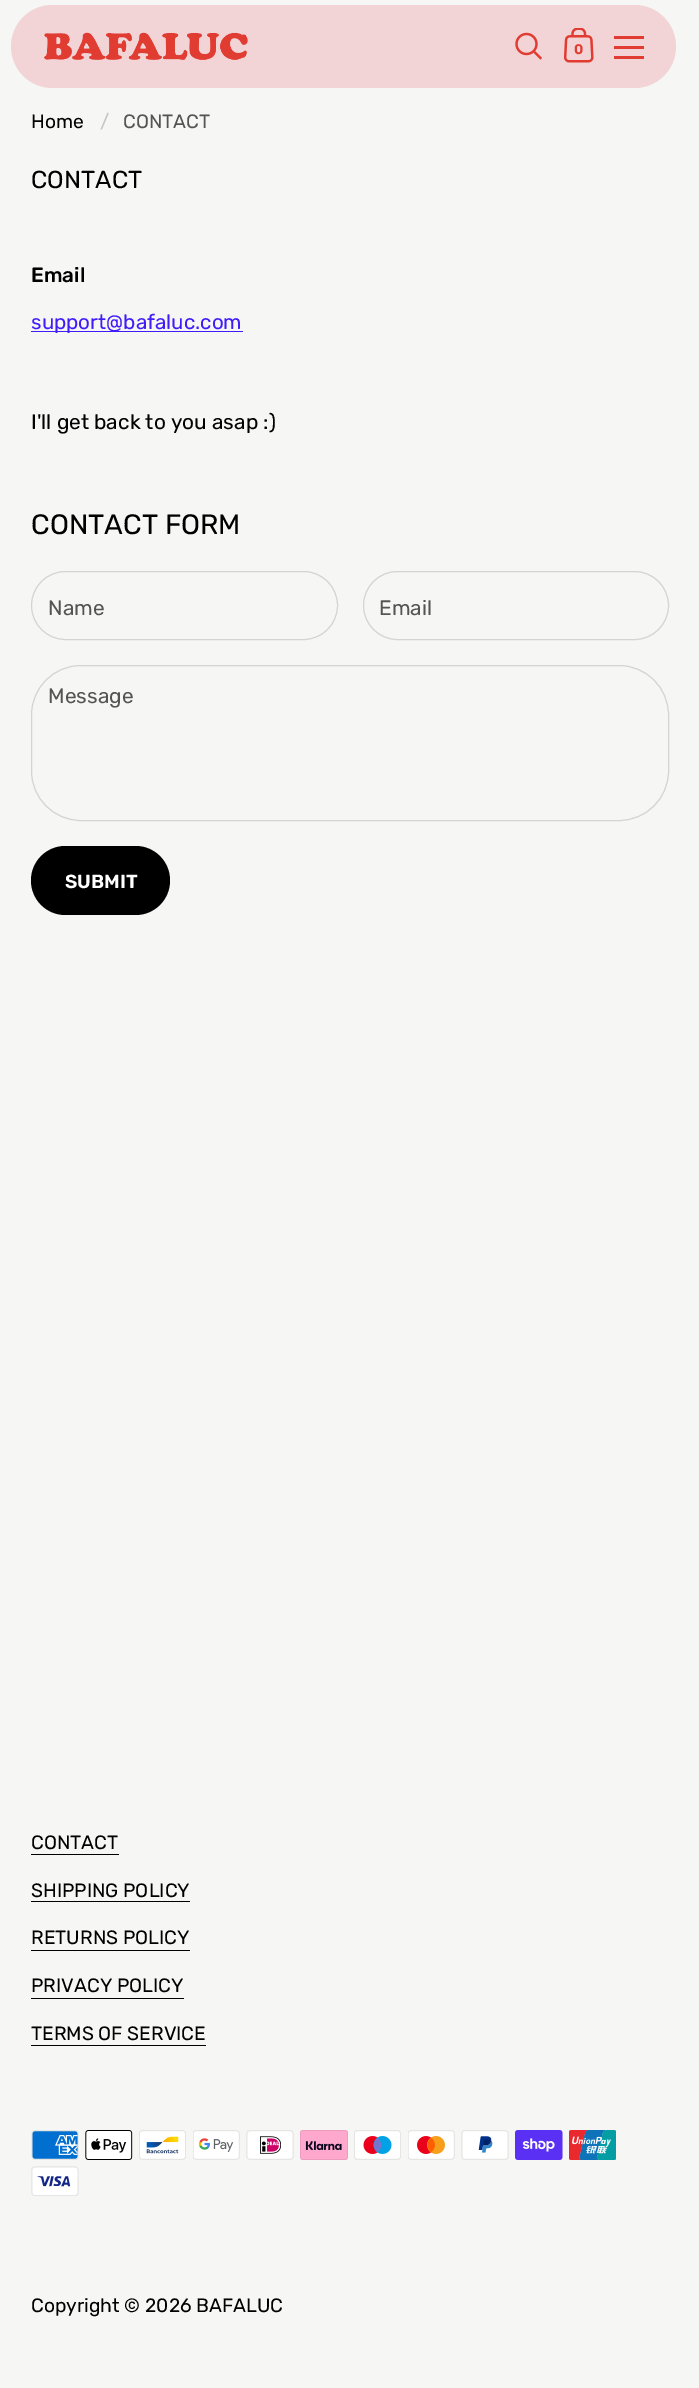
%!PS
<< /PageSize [699 2388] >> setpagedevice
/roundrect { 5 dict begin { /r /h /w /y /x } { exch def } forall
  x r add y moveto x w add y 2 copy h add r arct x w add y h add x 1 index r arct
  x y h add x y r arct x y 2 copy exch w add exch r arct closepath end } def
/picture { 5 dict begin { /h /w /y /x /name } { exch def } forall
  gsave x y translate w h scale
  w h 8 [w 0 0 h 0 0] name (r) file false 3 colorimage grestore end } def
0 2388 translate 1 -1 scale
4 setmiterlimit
0.965 0.969 0.957 setrgbcolor
0 0 699 2388 rectfill
0.949 0.831 0.843 setrgbcolor
11 5 665 83 41.5 roundrect fill
(img1.rgb) 44 32 204 28 picture
(img2.rgb) 515 32 27 28 picture
(img3.rgb) 564 28 30 35 picture
/Rubik-SemiBold [14 0 0 -14 0 0] selectfont
0.878 0.235 0.192 setrgbcolor
574 54 moveto (0) show
614 36 30 3 rectfill
614 46 30 3 rectfill
614 56 30 3 rectfill
/Rubik-Regular [19.25 0 0 -19.25 0 0] selectfont
0 setgray
31 128 moveto (Home) show
0.773 0.776 0.765 setrgbcolor
100 128 moveto (/) show
0.329 0.329 0.325 setrgbcolor
123 128 moveto (CONTACT) show
/Rubik-Regular [24.5 0 0 -24.5 0 0] selectfont
0 setgray
31 188 moveto (CONTACT) show
/Rubik-Medium [20.6 0 0 -20.6 0 0] selectfont
31 282 moveto (Email) show
0.255 0.106 0.98 setrgbcolor
31 331 212 1 rectfill
/Rubik-Regular [20.6 0 0 -20.6 0 0] selectfont
31 329 moveto (support@bafaluc.com) show
/Rubik-Regular [20.9 0 0 -20.9 0 0] selectfont
0 setgray
31 429 moveto (I'll get back to you asap :\)) show
/Rubik-Regular [28 0 0 -28 0 0] selectfont
31 534 moveto (CONTACT FORM) show
0.831 0.831 0.824 setrgbcolor
31.5 571.5 306 68 34 roundrect stroke
/Rubik-Regular [20.9 0 0 -20.9 0 0] selectfont
0.329 0.329 0.325 setrgbcolor
48 615 moveto (Name) show
0.831 0.831 0.824 setrgbcolor
363.5 571.5 305 68 34 roundrect stroke
0.329 0.329 0.325 setrgbcolor
379 615 moveto (Email) show
0.831 0.831 0.824 setrgbcolor
31.5 665.5 637 155 49.5 roundrect stroke
0.329 0.329 0.325 setrgbcolor
48 703 moveto (Message) show
0 setgray
31 846 139 69 34.5 roundrect fill
/Rubik-SemiBold [19 0 0 -19 0 0] selectfont
1 setgray
65 888 moveto (SUBMIT) show
/Rubik-Regular [19.25 0 0 -19.25 0 0] selectfont
0 setgray
31 1849 moveto (CONTACT) show
31 1854 88 1 rectfill
31 1897 moveto (SHIPPING POLICY) show
31 1901 159 1 rectfill
31 1944 moveto (RETURNS POLICY) show
31 1950 159 1 rectfill
31 1992 moveto (PRIVACY POLICY) show
31 1998 153 1 rectfill
31 2040 moveto (TERMS OF SERVICE) show
31 2045 175 1 rectfill
(img4.rgb) 31 2130 48 30 picture
(img5.rgb) 85 2130 48 30 picture
(img6.rgb) 139 2130 47 30 picture
(img7.rgb) 193 2130 47 30 picture
(img8.rgb) 246 2130 48 30 picture
(img9.rgb) 300 2130 48 30 picture
(img10.rgb) 354 2130 47 30 picture
(img11.rgb) 408 2130 47 30 picture
(img12.rgb) 461 2130 48 30 picture
(img13.rgb) 515 2130 48 30 picture
(img14.rgb) 569 2130 47 30 picture
(img15.rgb) 31 2166 48 30 picture
31 2312 moveto (Copyright © 2026 BAFALUC) show
showpage
